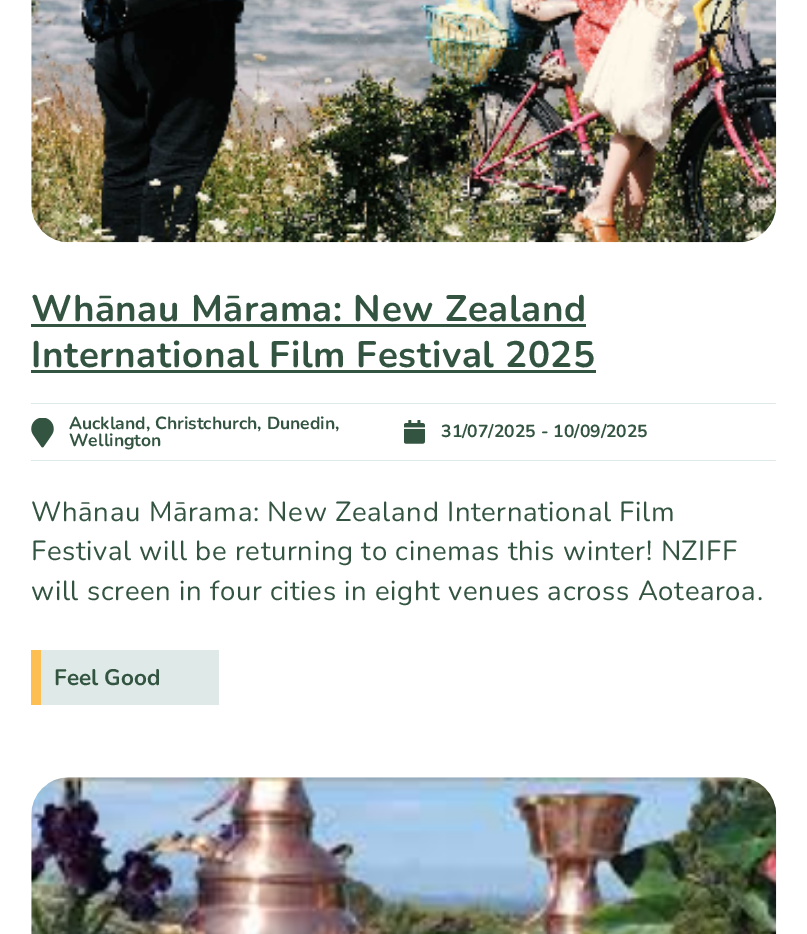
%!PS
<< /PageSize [807 934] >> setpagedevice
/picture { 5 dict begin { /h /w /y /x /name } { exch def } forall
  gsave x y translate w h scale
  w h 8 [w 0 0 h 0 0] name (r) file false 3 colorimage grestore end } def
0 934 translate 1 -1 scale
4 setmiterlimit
1 setgray
0 0 807 934 rectfill
(img1.rgb) 31 0 746 243 picture
/Nunito-Bold [36.75 0 0 -36.75 0 0] selectfont
0.2 0.329 0.251 setrgbcolor
31 321 moveto 0.62 0 (Whānau Mārama: New Zealand) ashow
31 324 555 3 rectfill
31 367 moveto 0.62 0 (International Film Festival 2025) ashow
31 370 565 3 rectfill
0.875 0.914 0.91 setrgbcolor
31 403 745 1 rectfill
31 460 745 1 rectfill
(img2.rgb) 31 418 23 30 picture
/Nunito-Bold [17.5 0 0 -17.5 0 0] selectfont
0.2 0.329 0.251 setrgbcolor
69 429 moveto (Auckland, Christchurch, Dunedin,) show
69 446 moveto (Wellington) show
(img3.rgb) 404 420 21 24 picture
441 437 moveto (31/07/2025 - 10/09/2025) show
/Nunito-Regular [27.5 0 0 -27.5 0 0] selectfont
31 521 moveto 0.62 0 (Whānau Mārama: New Zealand International Film) ashow
31 560 moveto 0.62 0 (Festival will be returning to cinemas this winter! NZIFF) ashow
31 600 moveto 0.62 0 (will screen in four cities in eight venues across Aotearoa.) ashow
0.875 0.914 0.91 setrgbcolor
41 650 178 55 rectfill
0.992 0.749 0.322 setrgbcolor
31 650 10 55 rectfill
/Nunito-Bold [22.5 0 0 -22.5 0 0] selectfont
0.2 0.329 0.251 setrgbcolor
54 685 moveto (Feel Good) show
(img4.rgb) 31 777 746 157 picture
showpage
